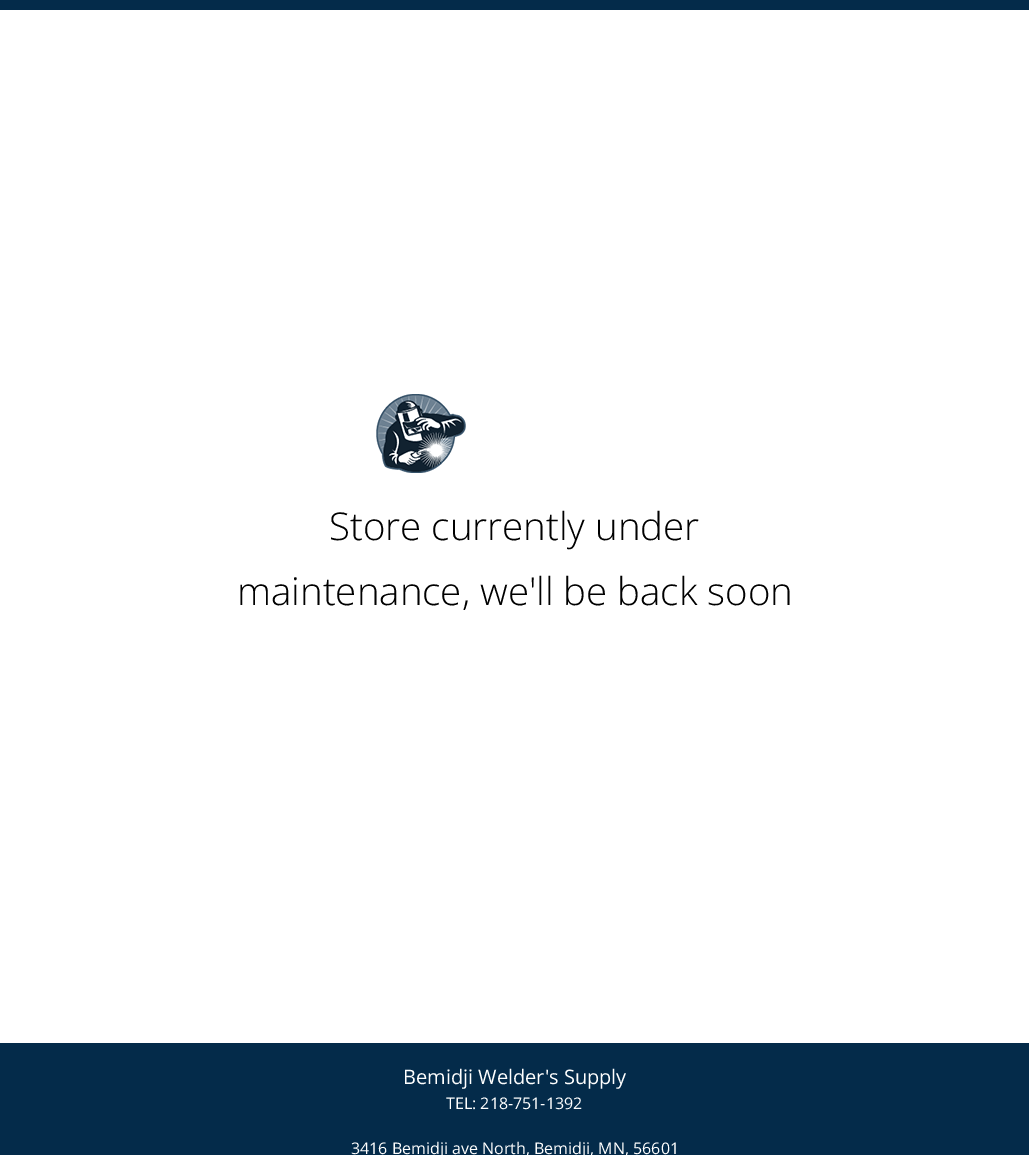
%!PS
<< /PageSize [1029 1155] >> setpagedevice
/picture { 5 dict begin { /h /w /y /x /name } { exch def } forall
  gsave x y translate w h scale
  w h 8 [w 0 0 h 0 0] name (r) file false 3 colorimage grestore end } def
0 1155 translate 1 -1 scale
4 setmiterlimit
1 setgray
0 0 1029 1155 rectfill
0.016 0.169 0.29 setrgbcolor
0 0 1029 10 rectfill
(img1.rgb) 376 394 90 79 picture
/OpenSans-Light [38.4 0 0 -38.4 0 0] selectfont
0 setgray
329 540 moveto (Store currently under) show
237 605 moveto (maintenance, we'll be back soon) show
0.016 0.169 0.29 setrgbcolor
0 1043 1029 112 rectfill
/OpenSans-Regular [20 0 0 -20 0 0] selectfont
1 setgray
403 1084 moveto (Bemidji Welder's Supply) show
/OpenSans-Regular [16 0 0 -16 0 0] selectfont
446 1109 moveto (TEL: 218-751-1392) show
351 1154 moveto (3416 Bemidji ave North, Bemidji, MN, 56601) show
showpage
